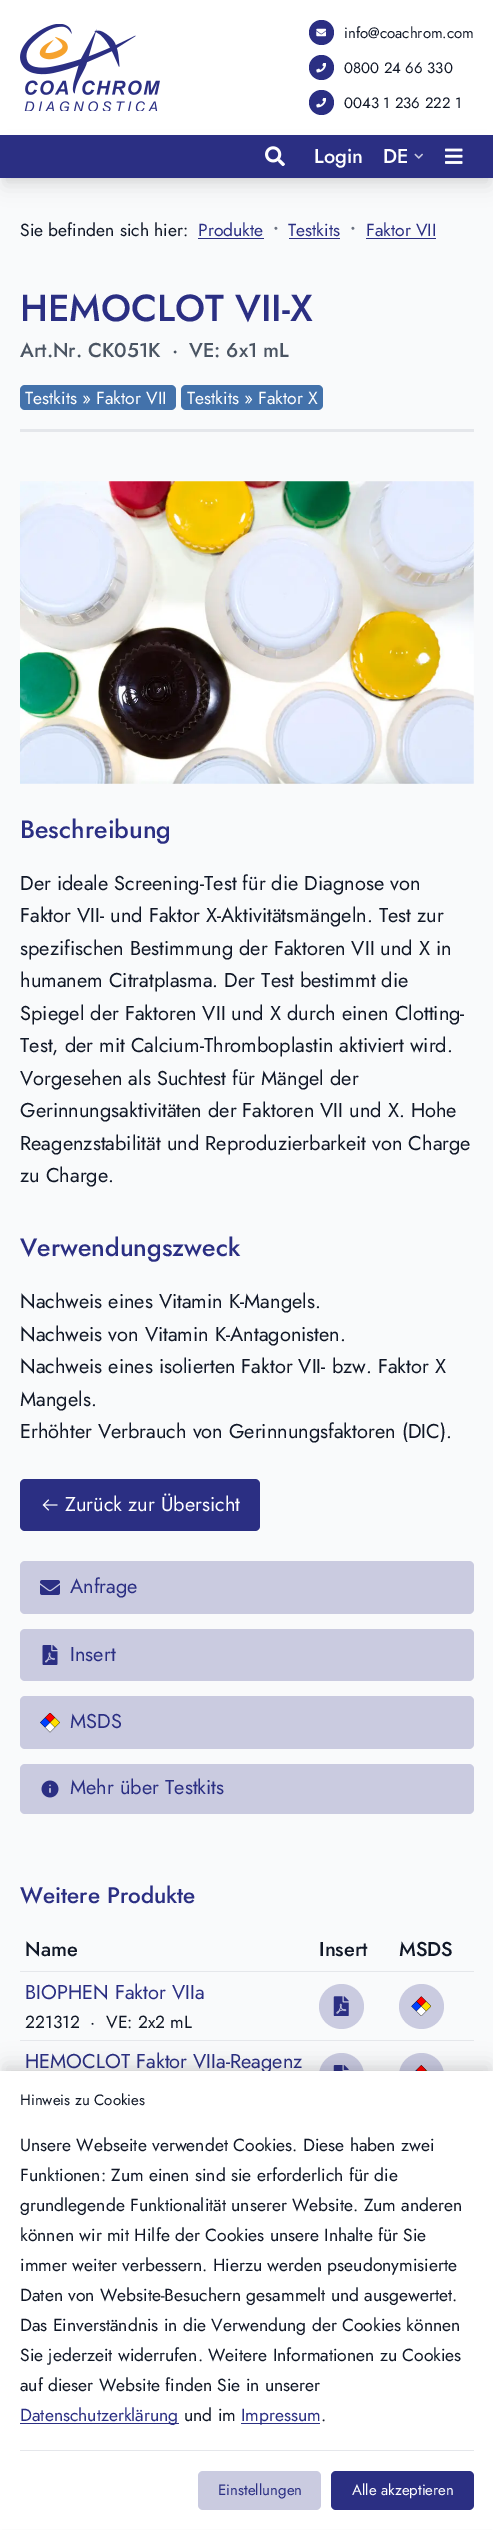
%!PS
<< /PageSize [493 2530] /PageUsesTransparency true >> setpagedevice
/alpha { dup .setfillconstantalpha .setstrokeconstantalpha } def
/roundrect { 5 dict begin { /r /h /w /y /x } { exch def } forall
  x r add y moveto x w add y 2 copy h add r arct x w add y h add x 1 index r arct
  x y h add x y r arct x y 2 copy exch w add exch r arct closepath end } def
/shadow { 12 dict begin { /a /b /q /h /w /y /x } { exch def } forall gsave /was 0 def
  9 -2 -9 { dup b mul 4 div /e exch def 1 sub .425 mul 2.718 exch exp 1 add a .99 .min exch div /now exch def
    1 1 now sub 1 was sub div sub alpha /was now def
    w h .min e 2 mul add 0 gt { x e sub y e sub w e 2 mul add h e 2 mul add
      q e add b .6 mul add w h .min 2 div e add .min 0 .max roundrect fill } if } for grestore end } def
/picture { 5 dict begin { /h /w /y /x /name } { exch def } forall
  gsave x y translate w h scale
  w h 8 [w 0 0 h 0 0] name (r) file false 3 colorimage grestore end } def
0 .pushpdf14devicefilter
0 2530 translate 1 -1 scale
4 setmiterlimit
1 setgray
0 0 493 2530 rectfill
(img1.rgb) 20 24 140 87 picture
0.169 0.184 0.514 setrgbcolor
newpath 321.5 32.5 12.5 0 360 arc closepath fill
(img2.rgb) 316 28 10 9 picture
/Jost-Regular [15 0 0 -15 0 0] selectfont
0.067 0.094 0.153 setrgbcolor
344 38 moveto (info@coachrom.com) show
0.169 0.184 0.514 setrgbcolor
newpath 321.5 67.5 12.5 0 360 arc closepath fill
(img3.rgb) 316 63 10 10 picture
0.067 0.094 0.153 setrgbcolor
344 73 moveto (0800 24 66 330) show
0.169 0.184 0.514 setrgbcolor
newpath 321.5 102.5 12.5 0 360 arc closepath fill
(img3.rgb) 316 98 10 10 picture
0.067 0.094 0.153 setrgbcolor
344 108 moveto (0043 1 236 222 1) show
0.976 0.98 0.984 setrgbcolor
0 178 493 1893 rectfill
0 setgray
5 145 484 33 0 4 0.1 shadow
4 151 486 35 0 9.5 0.1 shadow
0.169 0.184 0.514 setrgbcolor
0 135 493 43 rectfill
(img4.rgb) 265 146 20 20 picture
/Jost-Medium [20 0 0 -20 0 0] selectfont
1 setgray
314 163 moveto (Login) show
383 163 moveto (DE) show
(img5.rgb) 414 153 9 6 picture
(img6.rgb) 445 148 18 16 picture
/Jost-Regular [17.5 0 0 -17.5 0 0] selectfont
0.067 0.094 0.153 setrgbcolor
20 236 moveto (Sie befinden sich hier:) show
0.169 0.184 0.514 setrgbcolor
198 236 moveto (Produkte) show
198 238 66 1 rectfill
/Jost-Bold [17.5 0 0 -17.5 0 0] selectfont
0.42 0.447 0.502 setrgbcolor
273 236 moveto (•) show
/Jost-Regular [17.5 0 0 -17.5 0 0] selectfont
0.169 0.184 0.514 setrgbcolor
288 236 moveto (Testkits) show
289 238 51 1 rectfill
/Jost-Bold [17.5 0 0 -17.5 0 0] selectfont
0.42 0.447 0.502 setrgbcolor
350 236 moveto (•) show
/Jost-Regular [17.5 0 0 -17.5 0 0] selectfont
0.169 0.184 0.514 setrgbcolor
366 236 moveto (Faktor VII) show
366 238 70 1 rectfill
0.898 0.906 0.922 setrgbcolor
20 429 454 3 rectfill
/Jost-Medium [37.5 0 0 -37.5 0 0] selectfont
0.169 0.184 0.514 setrgbcolor
20 321 moveto (HEMOCLOT VII-X) show
/Jost-Medium [20 0 0 -20 0 0] selectfont
0.294 0.333 0.388 setrgbcolor
20 357 moveto (Art.Nr. CK051K) show
172 357 moveto (·) show
189 357 moveto (VE: 6x1 mL) show
0.263 0.447 0.671 setrgbcolor
20 385 156 25 5 roundrect fill
/Jost-Regular [17.5 0 0 -17.5 0 0] selectfont
1 setgray
25 404 moveto (Testkits » Faktor VII) show
0.263 0.447 0.671 setrgbcolor
181 385 142 25 5 roundrect fill
1 setgray
187 404 moveto (Testkits » Faktor X) show
(img7.rgb) 20 481 454 303 picture
/Jost-Medium [25 0 0 -25 0 0] selectfont
0.169 0.184 0.514 setrgbcolor
20 838 moveto (Beschreibung) show
/Jost-Regular [20 0 0 -20 0 0] selectfont
0.067 0.094 0.153 setrgbcolor
20 890 moveto (Der ideale Screening-Test für die Diagnose von) show
20 922 moveto (Faktor VII- und Faktor X-Aktivitätsmängeln. Test zur) show
20 955 moveto (spezifischen Bestimmung der Faktoren VII und X in) show
20 987 moveto (humanem Citratplasma. Der Test bestimmt die) show
20 1020 moveto (Spiegel der Faktoren VII und X durch einen Clotting-) show
20 1052 moveto (Test, der mit Calcium-Thromboplastin aktiviert wird.) show
20 1085 moveto (Vorgesehen als Suchtest für Mängel der) show
20 1117 moveto (Gerinnungsaktivitäten der Faktoren VII und X. Hohe) show
20 1150 moveto (Reagenzstabilität und Reproduzierbarkeit von Charge) show
20 1182 moveto (zu Charge.) show
/Jost-Medium [25 0 0 -25 0 0] selectfont
0.169 0.184 0.514 setrgbcolor
20 1256 moveto (Verwendungszweck) show
/Jost-Regular [20 0 0 -20 0 0] selectfont
0.067 0.094 0.153 setrgbcolor
20 1308 moveto (Nachweis eines Vitamin K-Mangels.) show
20 1341 moveto (Nachweis von Vitamin K-Antagonisten.) show
20 1373 moveto (Nachweis eines isolierten Faktor VII- bzw. Faktor X) show
20 1406 moveto (Mangels.) show
20 1438 moveto (Erhöhter Verbrauch von Gerinnungsfaktoren \(DIC\).) show
0.169 0.184 0.514 setrgbcolor
20 1479 240 52 5 roundrect fill
(img8.rgb) 42 1499 16 12 picture
1 setgray
65 1511 moveto (Zurück zur Übersicht) show
0.792 0.796 0.878 setrgbcolor
20 1561 454 53 5 roundrect fill
(img9.rgb) 40 1580 20 15 picture
0.169 0.184 0.514 setrgbcolor
70 1593 moveto (Anfrage) show
0.792 0.796 0.878 setrgbcolor
20 1629 454 52 5 roundrect fill
(img10.rgb) 42 1645 16 20 picture
0.169 0.184 0.514 setrgbcolor
70 1661 moveto (Insert) show
0.792 0.796 0.878 setrgbcolor
20 1696 454 53 5 roundrect fill
(img11.rgb) 40 1713 20 20 picture
0.169 0.184 0.514 setrgbcolor
70 1728 moveto (MSDS) show
0.792 0.796 0.878 setrgbcolor
20 1764 454 50 5 roundrect fill
(img12.rgb) 41 1780 18 18 picture
0.169 0.184 0.514 setrgbcolor
70 1794 moveto (Mehr über Testkits) show
/Jost-Medium [22.5 0 0 -22.5 0 0] selectfont
20 1903 moveto (Weitere Produkte) show
/Jost-Medium [20 0 0 -20 0 0] selectfont
0.067 0.094 0.153 setrgbcolor
25 1956 moveto (Name) show
319 1956 moveto (Insert) show
399 1956 moveto (MSDS) show
0.898 0.906 0.922 setrgbcolor
20 1971 454 1 rectfill
/Jost-Regular [20 0 0 -20 0 0] selectfont
0.169 0.184 0.514 setrgbcolor
25 1999 moveto (BIOPHEN Faktor VIIa) show
/Jost-Regular [17.5 0 0 -17.5 0 0] selectfont
0.067 0.094 0.153 setrgbcolor
25 2028 moveto (221312) show
90 2028 moveto (·) show
106 2028 moveto (VE: 2x2 mL) show
0.792 0.796 0.878 setrgbcolor
newpath 341.5 2006.5 22.5 0 360 arc closepath fill
(img13.rgb) 333 1996 16 20 picture
newpath 421.5 2006.5 22.5 0 360 arc closepath fill
(img14.rgb) 411 1996 20 20 picture
0.898 0.906 0.922 setrgbcolor
20 2040 454 1 rectfill
/Jost-Regular [20 0 0 -20 0 0] selectfont
0.169 0.184 0.514 setrgbcolor
25 2068 moveto (HEMOCLOT Faktor VIIa-Reagenz) show
0.792 0.796 0.878 setrgbcolor
newpath 341.5 2075.5 22.5 0 360 arc closepath fill
(img15.rgb) 333 2065 16 6 picture
newpath 421.5 2075.5 22.5 0 360 arc closepath fill
(img16.rgb) 415 2065 13 6 picture
0 setgray
3 2069 488 454 0 4 0.05 shadow
4 2063 486 451 0 9.5 0.1 shadow
1 setgray
0 2071 493 458 rectfill
/Jost-Regular [15 0 0 -15 0 0] selectfont
0.067 0.094 0.153 setrgbcolor
20 2105 moveto (Hinweis zu Cookies) show
/Jost-Regular [17.5 0 0 -17.5 0 0] selectfont
20 2151 moveto (Unsere Webseite verwendet Cookies. Diese haben zwei) show
20 2181 moveto (Funktionen: Zum einen sind sie erforderlich für die) show
20 2211 moveto (grundlegende Funktionalität unserer Website. Zum anderen) show
20 2241 moveto (können wir mit Hilfe der Cookies unsere Inhalte für Sie) show
20 2271 moveto (immer weiter verbessern. Hierzu werden pseudonymisierte) show
20 2301 moveto (Daten von Website-Besuchern gesammelt und ausgewertet.) show
20 2331 moveto (Das Einverständnis in die Verwendung der Cookies können) show
20 2361 moveto (Sie jederzeit widerrufen. Weitere Informationen zu Cookies) show
20 2391 moveto (auf dieser Website finden Sie in unserer) show
0.169 0.184 0.514 setrgbcolor
20 2423 159 1 rectfill
20 2421 moveto (Datenschutzerklärung) show
0.067 0.094 0.153 setrgbcolor
184 2421 moveto (und im) show
0.169 0.184 0.514 setrgbcolor
241 2423 79 1 rectfill
241 2421 moveto (Impressum) show
0.067 0.094 0.153 setrgbcolor
321 2421 moveto (.) show
0.898 0.906 0.922 setrgbcolor
20 2450 454 1 rectfill
0.792 0.796 0.878 setrgbcolor
198 2471 123 39 5 roundrect fill
/Jost-Regular [15 0 0 -15 0 0] selectfont
0.169 0.184 0.514 setrgbcolor
218 2495 moveto (Einstellungen) show
331 2471 143 39 5 roundrect fill
1 setgray
352 2495 moveto (Alle akzeptieren) show
.poppdf14devicefilter showpage
